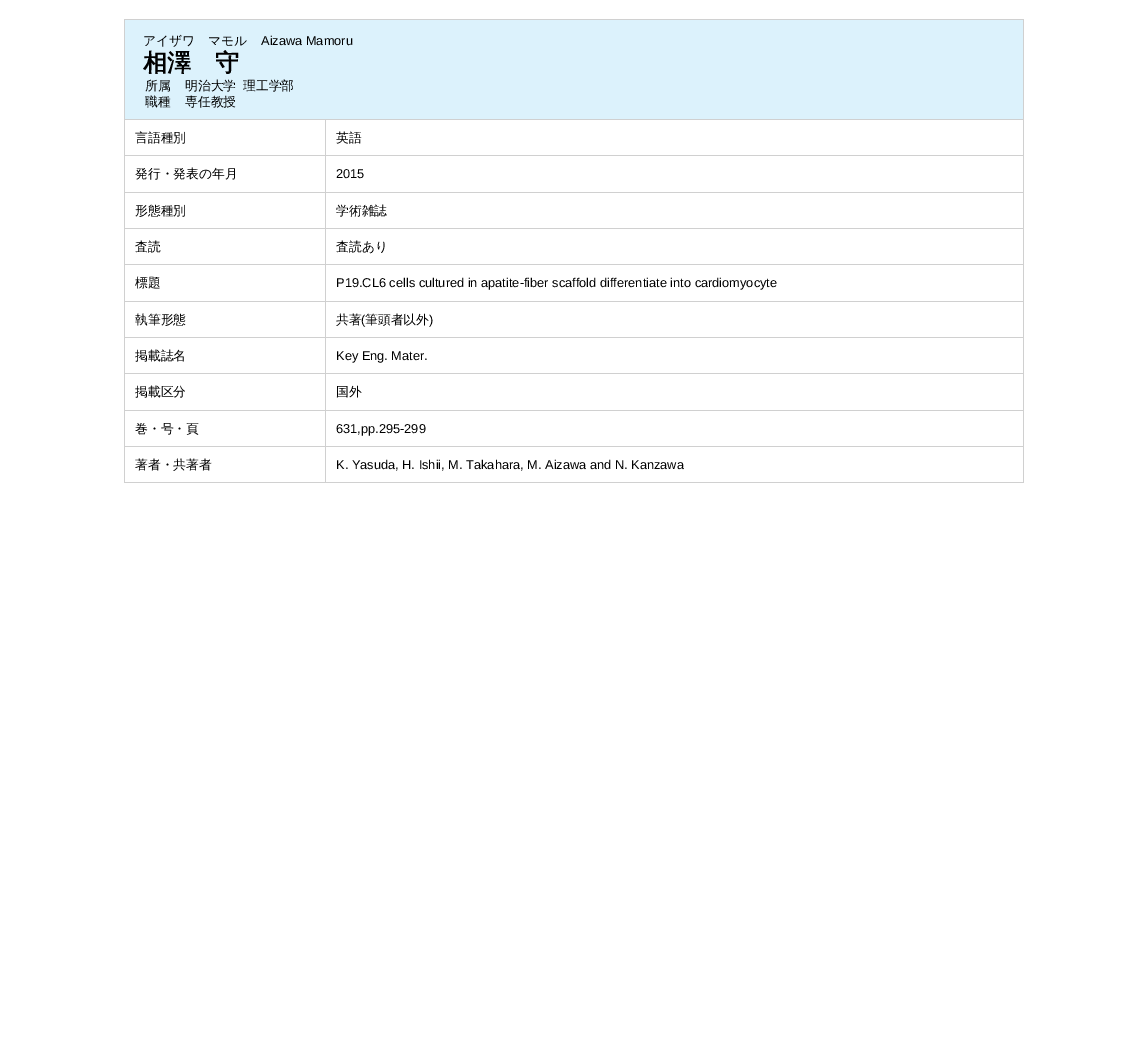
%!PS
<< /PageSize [1147 1054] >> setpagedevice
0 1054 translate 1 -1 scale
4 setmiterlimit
1 setgray
0 0 1147 1054 rectfill
0.816 setgray
124 19 900 464 rectfill
0.863 0.949 0.988 setrgbcolor
125 20 898 99 rectfill
/WenQuanYiZenHei-Medium [12.8 0 0 -12.8 0 0] selectfont
0 setgray
143 45 moveto (アイザワ　マモル) show
/LiberationSans-Regular [12.8 0 0 -12.8 0 0] selectfont
261 45 moveto (Aizawa Mamoru) show
/WenQuanYiZenHei-Bold [24 0 0 -24 0 0] selectfont
143 71 moveto (相澤　守) show
/WenQuanYiZenHei-Medium [12.8 0 0 -12.8 0 0] selectfont
145 90 moveto (所属) show
185 90 moveto (明治大学) show
243 90 moveto (理工学部) show
145 106 moveto (職種) show
185 106 moveto (専任教授) show
1 setgray
125 120 200 35 rectfill
0 setgray
135 142 moveto (言語種別) show
1 setgray
326 120 697 35 rectfill
0 setgray
336 142 moveto (英語) show
1 setgray
125 156 200 36 rectfill
0 setgray
135 178 moveto (発行・発表の年月) show
1 setgray
326 156 697 36 rectfill
/LiberationSans-Regular [12.8 0 0 -12.8 0 0] selectfont
0 setgray
336 178 moveto (2015) show
1 setgray
125 193 200 35 rectfill
/WenQuanYiZenHei-Medium [12.8 0 0 -12.8 0 0] selectfont
0 setgray
135 215 moveto (形態種別) show
1 setgray
326 193 697 35 rectfill
0 setgray
336 215 moveto (学術雑誌) show
1 setgray
125 229 200 35 rectfill
0 setgray
135 251 moveto (査読) show
1 setgray
326 229 697 35 rectfill
0 setgray
336 251 moveto (査読あり) show
1 setgray
125 265 200 36 rectfill
0 setgray
135 287 moveto (標題) show
1 setgray
326 265 697 36 rectfill
/LiberationSans-Regular [12.8 0 0 -12.8 0 0] selectfont
0 setgray
336 287 moveto (P19.CL6 cells cultured in apatite-fiber scaffold differentiate into cardiomyocyte) show
1 setgray
125 302 200 35 rectfill
/WenQuanYiZenHei-Medium [12.8 0 0 -12.8 0 0] selectfont
0 setgray
135 324 moveto (執筆形態) show
1 setgray
326 302 697 35 rectfill
0 setgray
336 324 moveto (共著) show
/LiberationSans-Regular [12.8 0 0 -12.8 0 0] selectfont
361 324 moveto (\() show
/WenQuanYiZenHei-Medium [12.8 0 0 -12.8 0 0] selectfont
365 324 moveto (筆頭者以外) show
/LiberationSans-Regular [12.8 0 0 -12.8 0 0] selectfont
429 324 moveto (\)) show
1 setgray
125 338 200 35 rectfill
/WenQuanYiZenHei-Medium [12.8 0 0 -12.8 0 0] selectfont
0 setgray
135 360 moveto (掲載誌名) show
1 setgray
326 338 697 35 rectfill
/LiberationSans-Regular [12.8 0 0 -12.8 0 0] selectfont
0 setgray
336 360 moveto (Key Eng. Mater.) show
1 setgray
125 374 200 36 rectfill
/WenQuanYiZenHei-Medium [12.8 0 0 -12.8 0 0] selectfont
0 setgray
135 396 moveto (掲載区分) show
1 setgray
326 374 697 36 rectfill
0 setgray
336 396 moveto (国外) show
1 setgray
125 411 200 35 rectfill
0 setgray
135 433 moveto (巻・号・頁) show
1 setgray
326 411 697 35 rectfill
/LiberationSans-Regular [12.8 0 0 -12.8 0 0] selectfont
0 setgray
336 433 moveto (631,pp.295-299) show
1 setgray
125 447 200 35 rectfill
/WenQuanYiZenHei-Medium [12.8 0 0 -12.8 0 0] selectfont
0 setgray
135 469 moveto (著者・共著者) show
1 setgray
326 447 697 35 rectfill
/LiberationSans-Regular [12.8 0 0 -12.8 0 0] selectfont
0 setgray
336 469 moveto (K. Yasuda, H. Ishii, M. Takahara, M. Aizawa and N. Kanzawa) show
showpage
